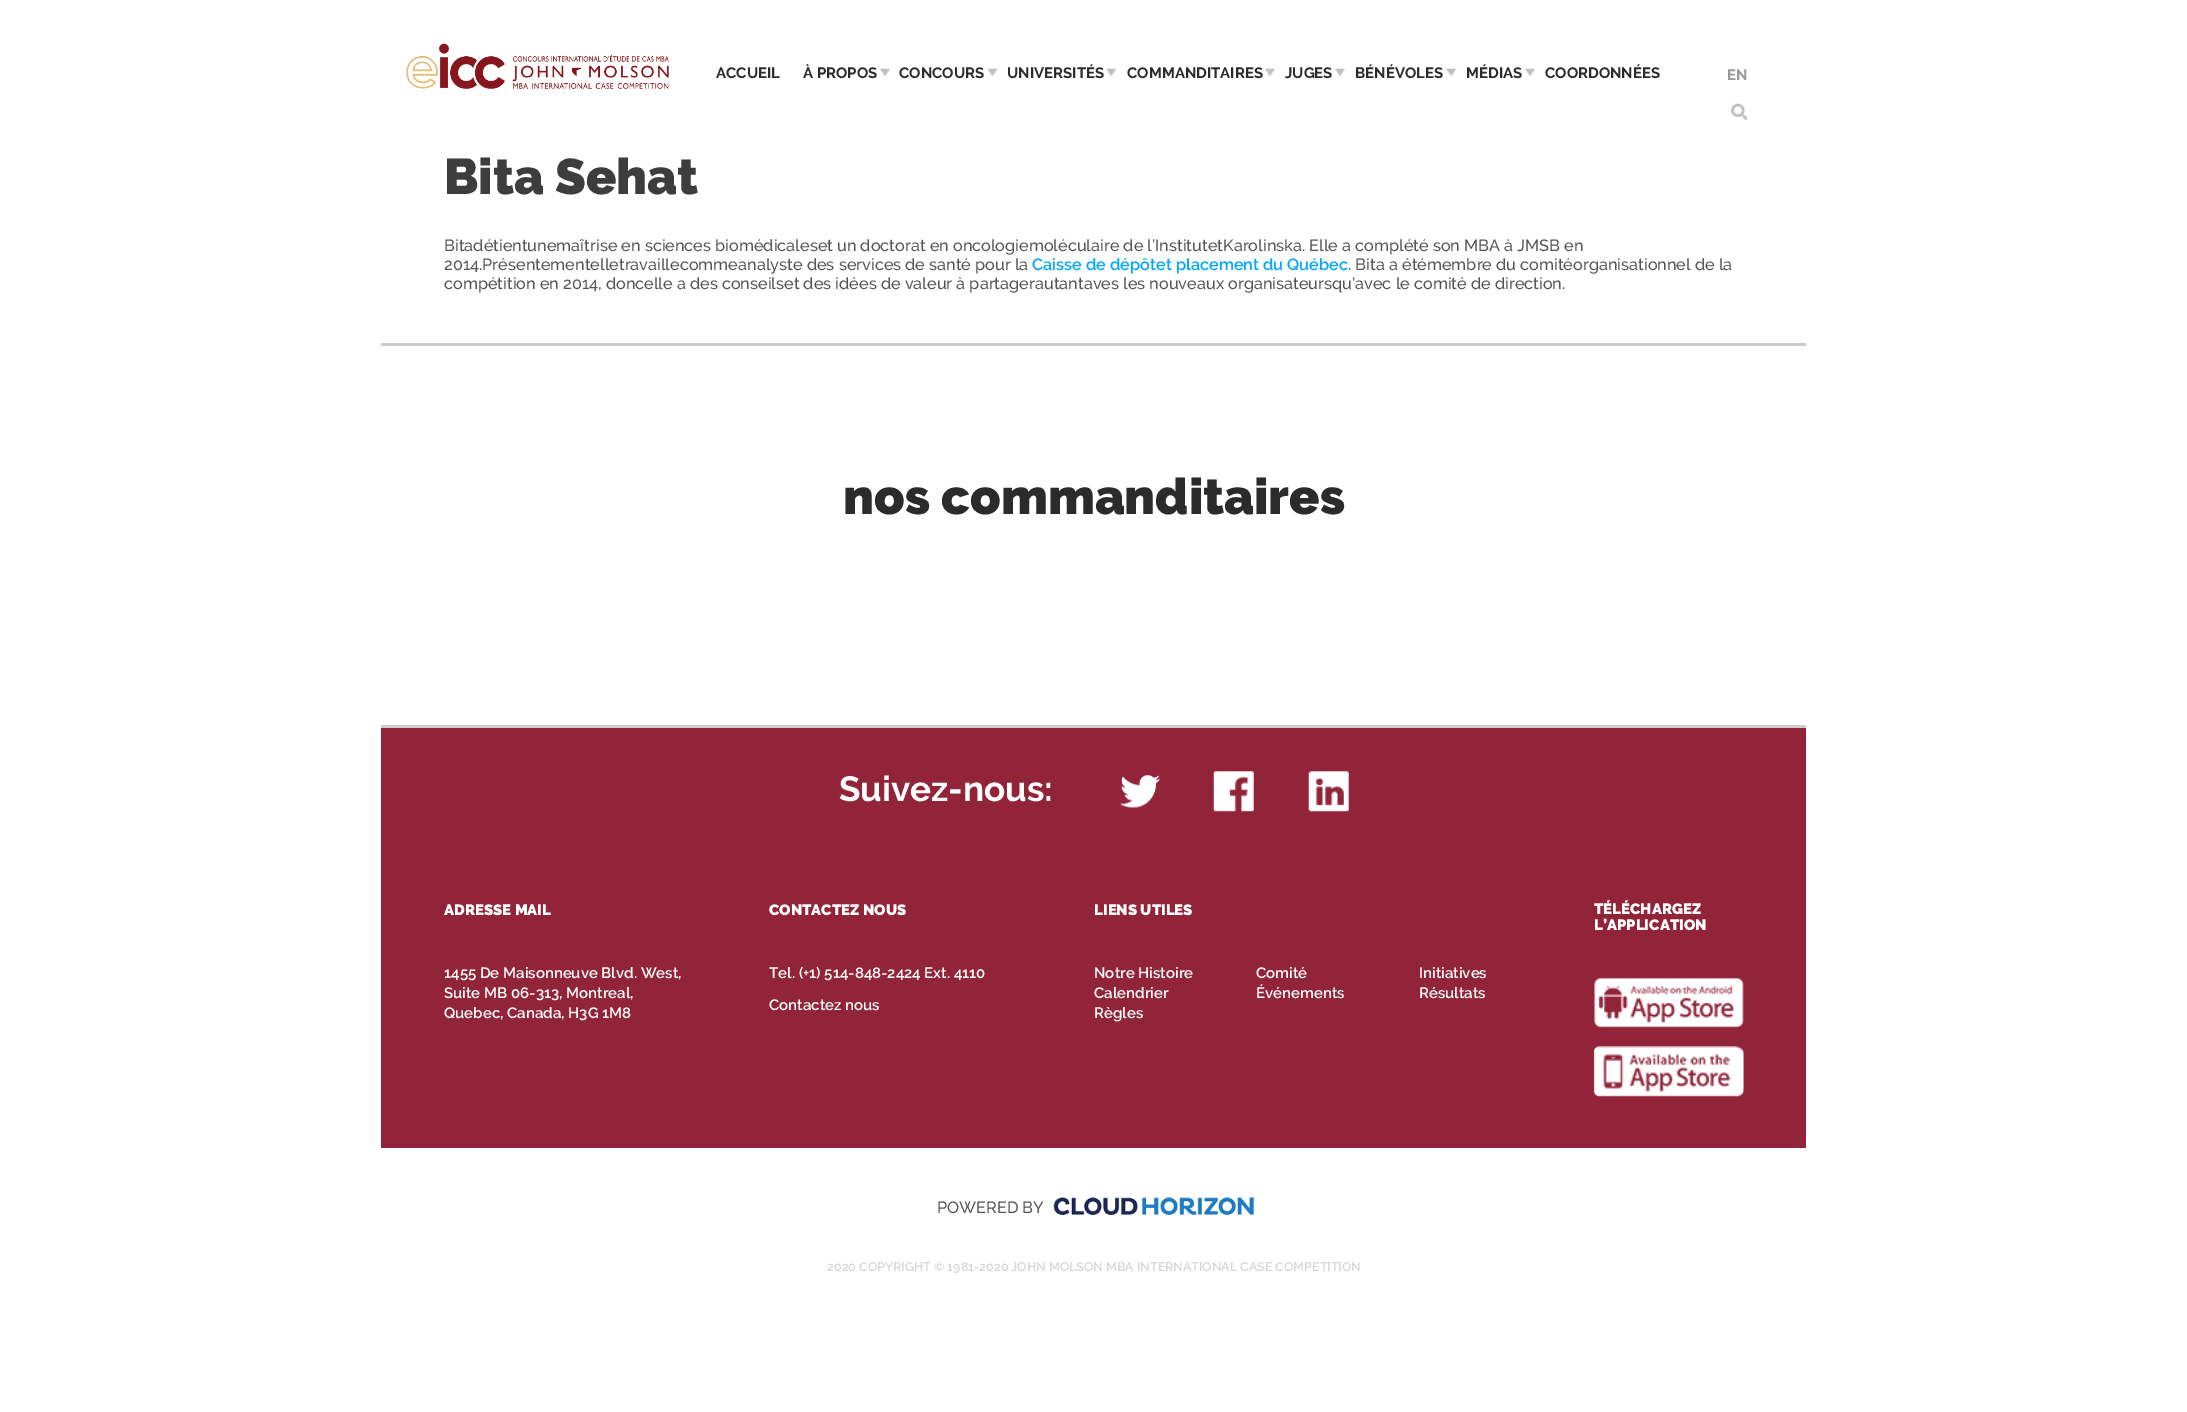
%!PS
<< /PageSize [2187 1412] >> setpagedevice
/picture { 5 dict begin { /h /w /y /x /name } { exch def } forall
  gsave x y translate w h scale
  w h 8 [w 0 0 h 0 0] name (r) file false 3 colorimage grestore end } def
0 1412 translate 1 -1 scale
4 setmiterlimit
1 setgray
0 0 2187 1412 rectfill
(img1.rgb) 406 43 263 46 picture
/Raleway-Bold [15 0 0 -15 0 0] selectfont
0.169 setgray
716 78 moveto (ACCUEIL) show
803 78 moveto (À PROPOS) show
(img2.rgb) 880 68 10 9 picture
899 78 moveto (CONCOURS) show
(img3.rgb) 987 68 11 9 picture
1007 78 moveto (UNIVERSITÉS) show
(img4.rgb) 1106 68 11 9 picture
1127 78 moveto (COMMANDITAIRES) show
(img2.rgb) 1265 68 10 9 picture
1285 78 moveto (JUGES) show
(img2.rgb) 1335 68 10 9 picture
1355 78 moveto (BÉNÉVOLES) show
(img4.rgb) 1446 68 11 9 picture
1466 78 moveto (MÉDIAS) show
(img2.rgb) 1525 68 10 9 picture
1545 78 moveto (COORDONNÉES) show
0.596 setgray
1727 80 moveto (EN) show
(img5.rgb) 1731 103 17 17 picture
/Raleway-Black [50 0 0 -50 0 0] selectfont
0.239 setgray
444 194 moveto (Bita Sehat) show
/Raleway-Medium [16.25 0 0 -16.25 0 0] selectfont
0.333 setgray
444 251 moveto (Bitadétientunemaîtrise en sciences biomédicaleset un doctorat en oncologiemoléculaire de l’InstitutetKarolinska. Elle a complété son MBA à JMSB en) show
444 270 moveto (2014.Présentementelletravaillecommeanalyste des services de santé pour la) show
/Raleway-SemiBold [16.25 0 0 -16.25 0 0] selectfont
0 0.659 1 setrgbcolor
1032 270 moveto (Caisse de dépôtet placement du Québec) show
/Raleway-Medium [16.25 0 0 -16.25 0 0] selectfont
0.333 setgray
1348 270 moveto (. Bita a étémembre du comitéorganisationnel de la) show
444 289 moveto (compétition en 2014, doncelle a des conseilset des idées de valeur à partagerautantaves les nouveaux organisateursqu’avec le comité de direction.) show
0.8 setgray
381 343 1425 3 rectfill
/Raleway-Black [50 0 0 -50 0 0] selectfont
0.169 setgray
843 514 moveto (nos commanditaires) show
0.569 0.141 0.224 setrgbcolor
381 728 1425 420 rectfill
0.8 setgray
381 725 1425 3 rectfill
/Raleway-Bold [35 0 0 -35 0 0] selectfont
1 setgray
839 801 moveto (Suivez-nous:) show
(img6.rgb) 1120 775 40 33 picture
(img7.rgb) 1213 771 41 41 picture
(img8.rgb) 1308 771 41 41 picture
/Raleway-Black [15 0 0 -15 0 0] selectfont
444 915 moveto (ADRESSE MAIL) show
/Raleway-SemiBold [15 0 0 -15 0 0] selectfont
444 978 moveto (1455 De Maisonneuve Blvd. West,) show
444 998 moveto (Suite MB 06-313, Montreal,) show
444 1018 moveto (Quebec, Canada, H3G 1M8) show
/Raleway-Black [15 0 0 -15 0 0] selectfont
769 915 moveto (CONTACTEZ NOUS) show
/Raleway-SemiBold [15 0 0 -15 0 0] selectfont
769 978 moveto (Tel. \(+1\) 514-848-2424 Ext. 4110) show
769 1010 moveto (Contactez nous) show
/Raleway-Black [15 0 0 -15 0 0] selectfont
1094 915 moveto (LIENS UTILES) show
/Raleway-SemiBold [15 0 0 -15 0 0] selectfont
1094 978 moveto (Notre Histoire) show
1256 978 moveto (Comité) show
1419 978 moveto (Initiatives) show
1094 998 moveto (Calendrier) show
1256 998 moveto (Événements) show
1419 998 moveto (Résultats) show
1094 1018 moveto (Règles) show
gsave
1594 876 150 272 rectclip
/Raleway-Black [15 0 0 -15 0 0] selectfont
1594 914 moveto (TÉLÉCHARGEZ) show
grestore
/Raleway-Black [15 0 0 -15 0 0] selectfont
1594 930 moveto (L’APPLICATION) show
(img9.rgb) 1594 977 150 51 picture
(img10.rgb) 1593 1046 151 51 picture
/Raleway-Medium [16.25 0 0 -16.25 0 0] selectfont
0.333 setgray
937 1213 moveto (POWERED BY) show
(img11.rgb) 1053 1197 201 18 picture
/Raleway-SemiBold [12.5 0 0 -12.5 0 0] selectfont
0.843 setgray
827 1271 moveto (2020 COPYRIGHT © 1981-2020 JOHN MOLSON MBA INTERNATIONAL CASE COMPETITION) show
showpage
